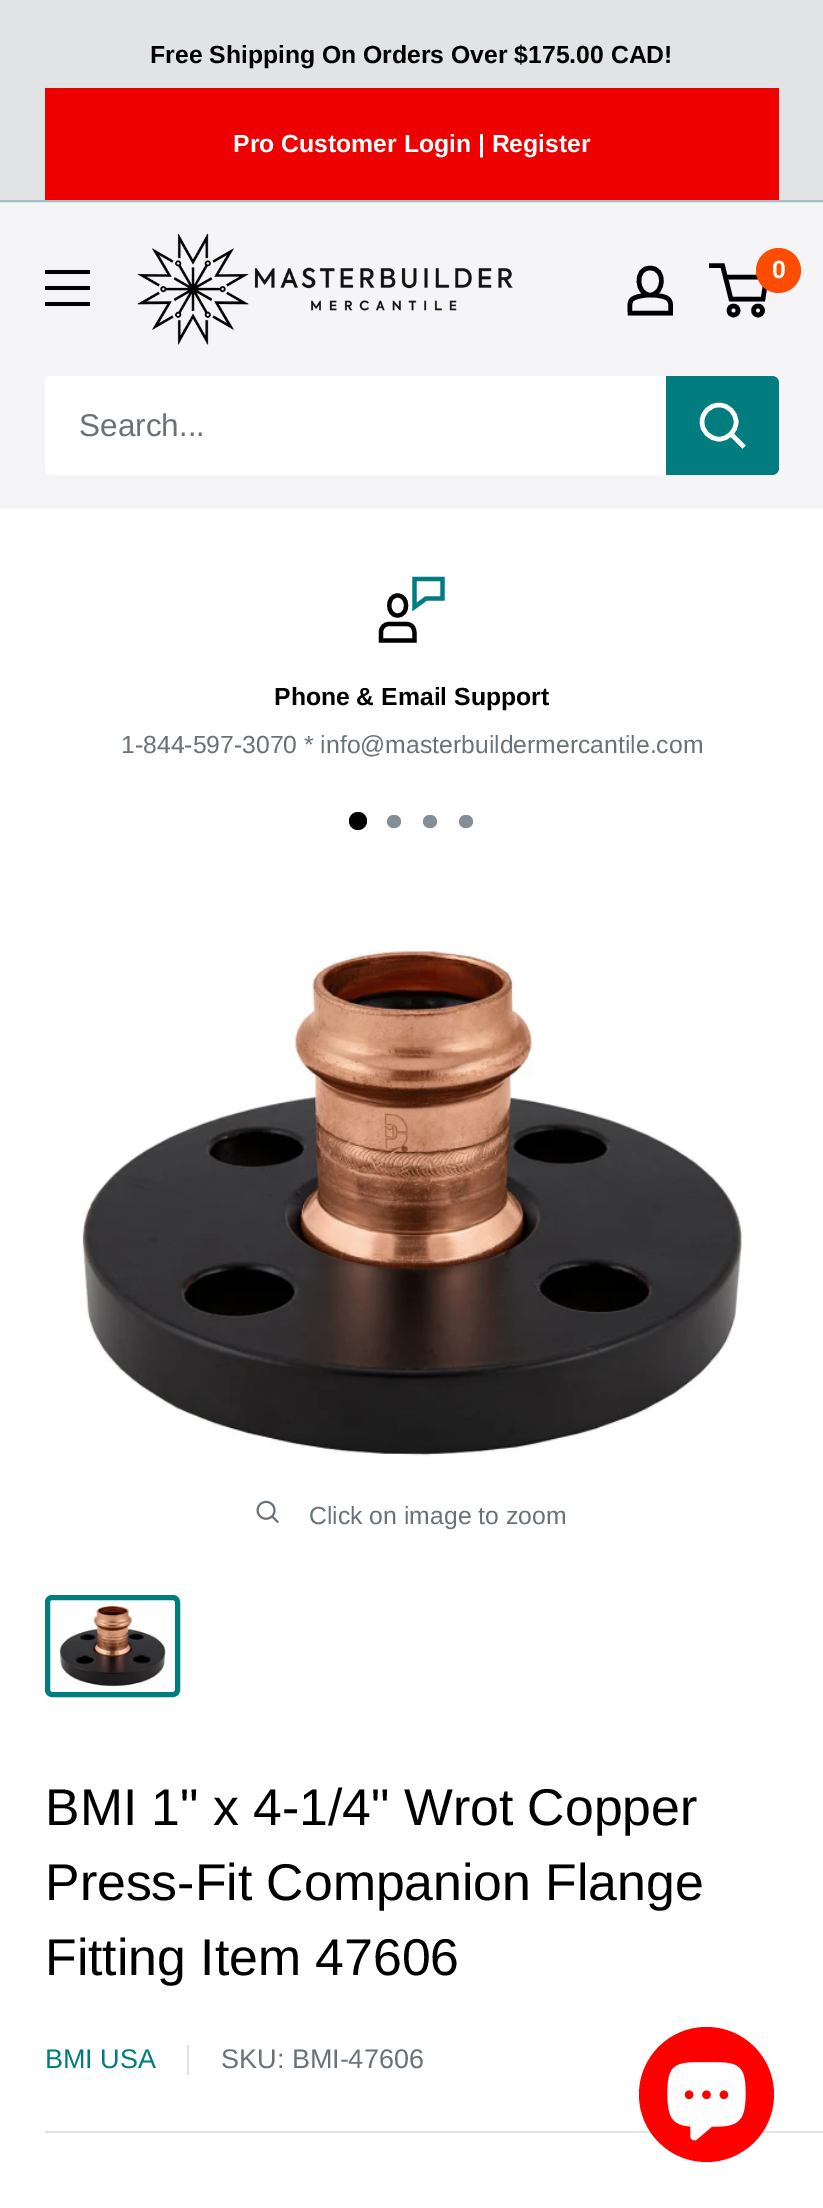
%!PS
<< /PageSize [823 2208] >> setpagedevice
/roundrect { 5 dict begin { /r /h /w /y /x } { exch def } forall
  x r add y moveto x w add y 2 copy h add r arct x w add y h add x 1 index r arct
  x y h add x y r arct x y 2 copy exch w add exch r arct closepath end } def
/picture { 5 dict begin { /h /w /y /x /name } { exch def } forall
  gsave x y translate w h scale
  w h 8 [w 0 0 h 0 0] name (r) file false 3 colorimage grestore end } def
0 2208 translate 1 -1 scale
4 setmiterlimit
1 setgray
0 0 823 2208 rectfill
0.882 0.89 0.894 setrgbcolor
0 0 823 203 rectfill
0.62 0.769 0.776 setrgbcolor
0 200 823 2 rectfill
/LiberationSans-Bold [24.75 0 0 -24.75 0 0] selectfont
0 setgray
150 63 moveto (Free Shipping On Orders Over $175.00 CAD!) show
0.933 0 0 setrgbcolor
45 88 734 112 rectfill
1 setgray
233 152 moveto (Pro Customer Login | Register) show
0.961 0.961 0.969 setrgbcolor
0 203 823 306 rectfill
0 setgray
newpath 45 302 moveto 90 302 lineto 90 306 lineto 45 306 lineto closepath 45 270 moveto 90 270 lineto 90 274 lineto 45 274 lineto closepath 45 286 moveto 90 286 lineto 90 290 lineto 45 290 lineto closepath eofill
(img1.rgb) 137 233 376 112 picture
4.5 setlinewidth
newpath 650 295 moveto 654.5 295 658.5 295.5 663 296.5 curveto 672.5 299 670.5 304.5 670.5 313 curveto 630 313 lineto 630 303.5 628 299 638.5 296.5 curveto 642.5 295.5 646.5 295 650 295 curveto closepath 650 295 moveto 636.5 295 634 268 650 268 curveto 666.5 268 664 295 650 295 curveto closepath stroke
newpath 733.5 310.5 4.5 0 360 arc closepath stroke
newpath 758 310.5 4.5 0 360 arc closepath stroke
newpath 725 277 moveto 766.5 277 lineto 763 299 lineto 731 299 lineto 722.5 265.5 lineto 709 265.5 lineto stroke
1 0.298 0 setrgbcolor
newpath 778.5 270.5 22.5 0 360 arc closepath fill
/LiberationSans-Bold [25 0 0 -25 0 0] selectfont
1 setgray
772 278 moveto (0) show
45 376 734 99 7 roundrect fill
/LiberationSans-Regular [31.5 0 0 -31.5 0 0] selectfont
0.404 0.447 0.475 setrgbcolor
79 436 moveto (Search...) show
0.004 0.486 0.498 setrgbcolor
newpath 666 376 moveto 772 376 lineto 776 376 779 379 779 383 curveto 779 468 lineto 779 472 776 475 772 475 curveto 666 475 lineto closepath fill
1 setgray
2 setlinecap
newpath 742.5 445.5 moveto 731 434 lineto stroke
0 setlinecap
newpath 719 422 17 0 360 arc closepath stroke
0 setgray
4.2 setlinewidth
2 setlinecap
newpath 406 624 moveto 389 624 lineto 384.5 624 381 627.5 381 632 curveto 381 640.5 lineto 414.5 640.5 lineto 414.5 634 416 624 406 624 curveto closepath 397.5 615.5 moveto 386.5 615.5 386.5 595.5 397.5 595.5 curveto 409 595.5 409 615.5 397.5 615.5 curveto closepath stroke
0.004 0.486 0.498 setrgbcolor
newpath 414.5 579 moveto 414.5 607 lineto 426 598.5 lineto 442.5 598.5 lineto 442.5 579 lineto closepath stroke
/LiberationSans-Bold [24.75 0 0 -24.75 0 0] selectfont
0 setgray
274 705 moveto (Phone & Email Support) show
/LiberationSans-Regular [24.75 0 0 -24.75 0 0] selectfont
0.404 0.447 0.475 setrgbcolor
121 753 moveto (1-844-597-3070 * info@masterbuildermercantile.com) show
0 setgray
newpath 358 821 9 0 360 arc closepath fill
0.522 0.557 0.58 setrgbcolor
387 815 14 13 6.5 roundrect fill
423 815 14 13 6.5 roundrect fill
459 815 14 13 6.5 roundrect fill
(img2.rgb) 82 950 661 508 picture
(img3.rgb) 256 1500 23 24 picture
0.404 0.447 0.475 setrgbcolor
309 1524 moveto (Click on image to zoom) show
0.004 0.486 0.498 setrgbcolor
5 setlinewidth
0 setlinecap
47.5 1597.5 130 97 4.5 roundrect stroke
(img4.rgb) 59 1604 107 83 picture
/LiberationSans-Regular [51.75 0 0 -51.75 0 0] selectfont
0 setgray
45 1825 moveto (BMI 1" x 4-1/4" Wrot Copper) show
45 1900 moveto (Press-Fit Companion Flange) show
45 1975 moveto (Fitting Item 47606) show
/LiberationSans-Regular [27 0 0 -27 0 0] selectfont
0.004 0.486 0.498 setrgbcolor
45 2068 moveto (BMI USA) show
0.882 0.89 0.894 setrgbcolor
187 2045 2 30 rectfill
0.404 0.447 0.475 setrgbcolor
221 2068 moveto (SKU: BMI-47606) show
0.882 0.89 0.894 setrgbcolor
45 2131 778 2 rectfill
1 0 0 setrgbcolor
newpath 706.5 2094.5 67.5 0 360 arc closepath fill
(img5.rgb) 667 2062 79 79 picture
showpage
